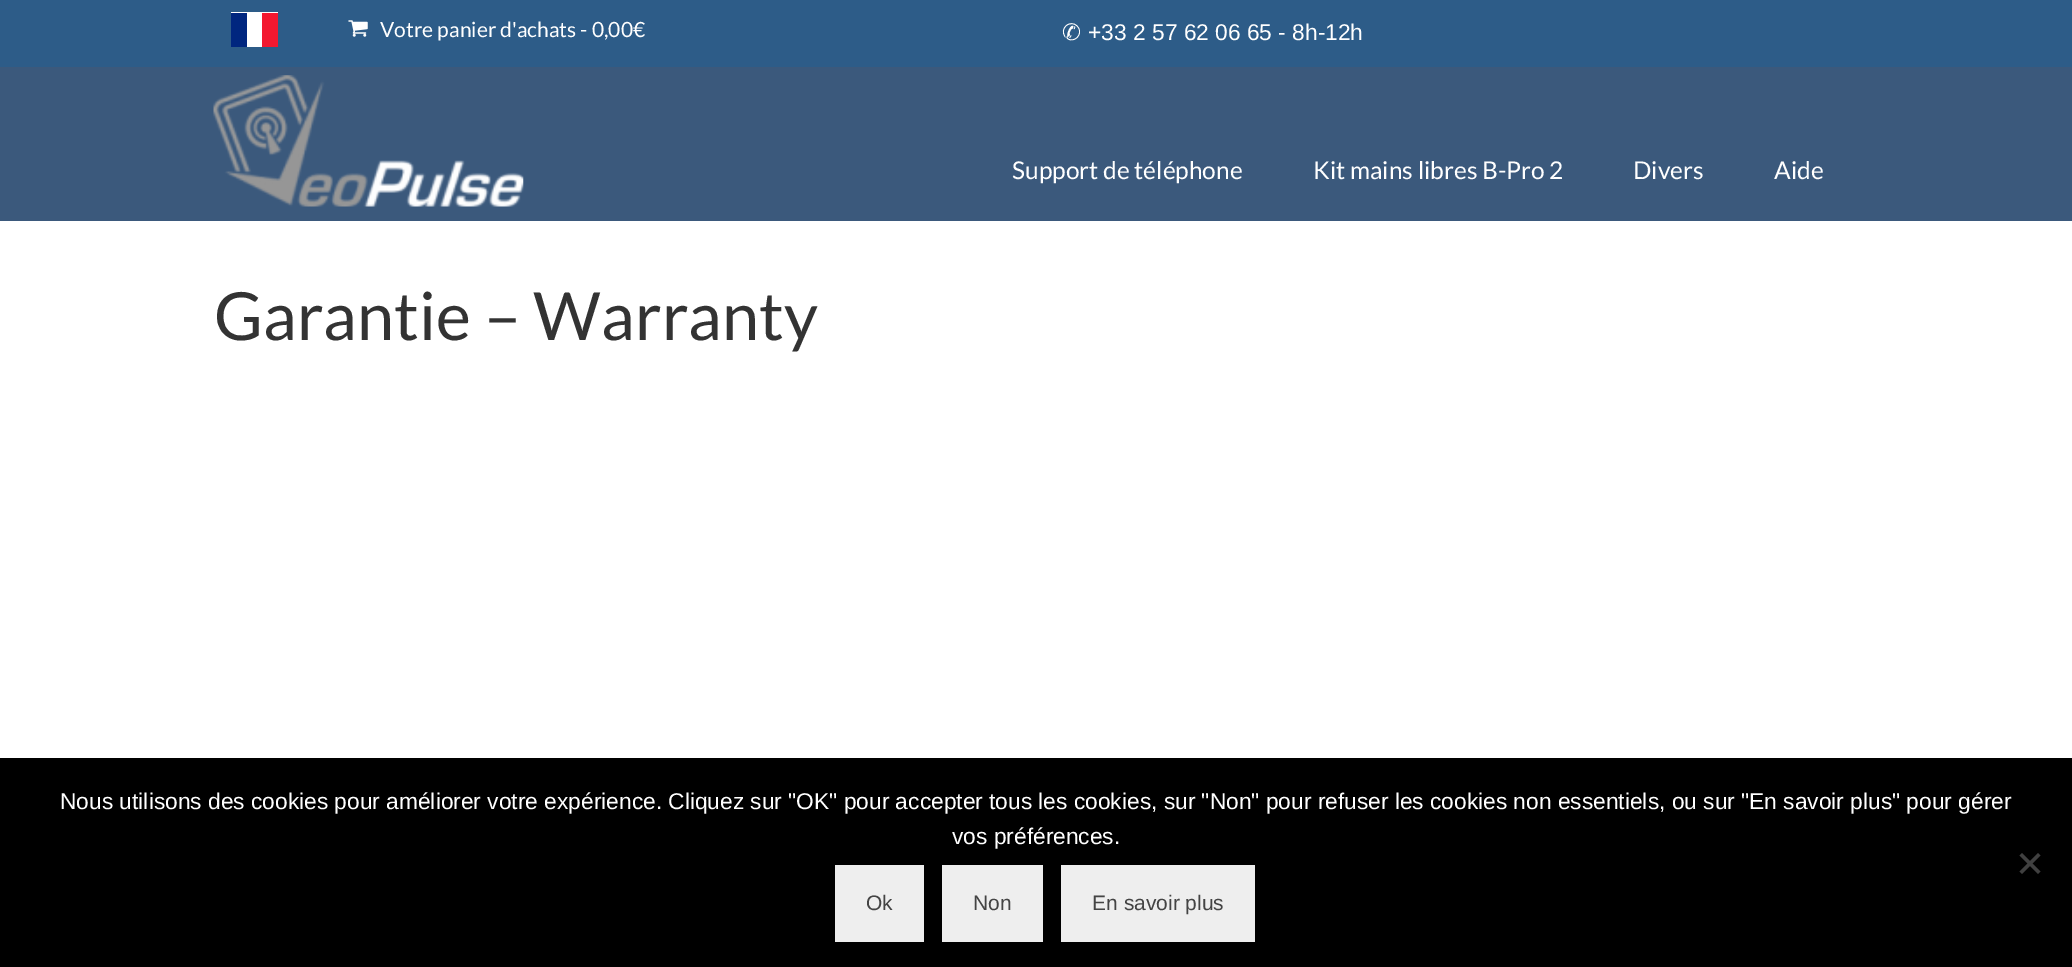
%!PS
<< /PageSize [2072 967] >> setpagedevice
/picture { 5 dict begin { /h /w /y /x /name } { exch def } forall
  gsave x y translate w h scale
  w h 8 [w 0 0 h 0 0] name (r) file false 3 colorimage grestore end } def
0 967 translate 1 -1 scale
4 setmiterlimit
1 setgray
0 0 2072 967 rectfill
0.231 0.349 0.486 setrgbcolor
0 67 2072 154 rectfill
0.176 0.361 0.533 setrgbcolor
0 0 2072 67 rectfill
1 setgray
231 12 47 35 rectfill
0 0.149 0.498 setrgbcolor
231 13 16 34 rectfill
0.953 0.094 0.188 setrgbcolor
262 13 16 34 rectfill
(img1.rgb) 348 20 20 17 picture
/Lato-Regular [21 0 0 -21 0 0] selectfont
1 setgray
380 37 moveto (Votre panier d'achats - 0,00€) show
/DejaVuSans-Regular [22.75 0 0 -22.75 0 0] selectfont
1062 40 moveto (✆) show
/LiberationSans-Regular [22.75 0 0 -22.75 0 0] selectfont
1088 40 moveto (+33 2 57 62 06 65 - 8h-12h) show
(img2.rgb) 213 75 311 132 picture
/Lato-Regular [24.5 0 0 -24.5 0 0] selectfont
1012 179 moveto (Support de téléphone) show
1313 179 moveto (Kit mains libres B-Pro 2) show
1633 179 moveto (Divers) show
1774 179 moveto (Aide) show
/Lato-Regular [66.5 0 0 -66.5 0 0] selectfont
0.2 setgray
214 340 moveto (Garantie – Warranty) show
0 setgray
0 758 2072 209 rectfill
/LiberationSans-Regular [22.75 0 0 -22.75 0 0] selectfont
1 setgray
60 809 moveto (Nous utilisons des cookies pour améliorer votre expérience. Cliquez sur "OK" pour accepter tous les cookies, sur "Non" pour refuser les cookies non essentiels, ou sur "En savoir plus" pour gérer) show
952 844 moveto (vos préférences.) show
0.251 setgray
newpath 2038 853 moveto 2040.5 855.5 lineto 2022 874 lineto 2019.5 871.5 lineto closepath fill
newpath 2019.5 855.5 moveto 2022 853 lineto 2040.5 871.5 lineto 2038 874 lineto closepath fill
0.933 setgray
835 865 89 77 rectfill
/LiberationSans-Regular [21 0 0 -21 0 0] selectfont
0.267 setgray
866 910 moveto (Ok) show
0.933 setgray
942 865 101 77 rectfill
0.267 setgray
973 910 moveto (Non) show
0.933 setgray
1061 865 194 77 rectfill
0.267 setgray
1092 910 moveto (En savoir plus) show
showpage
